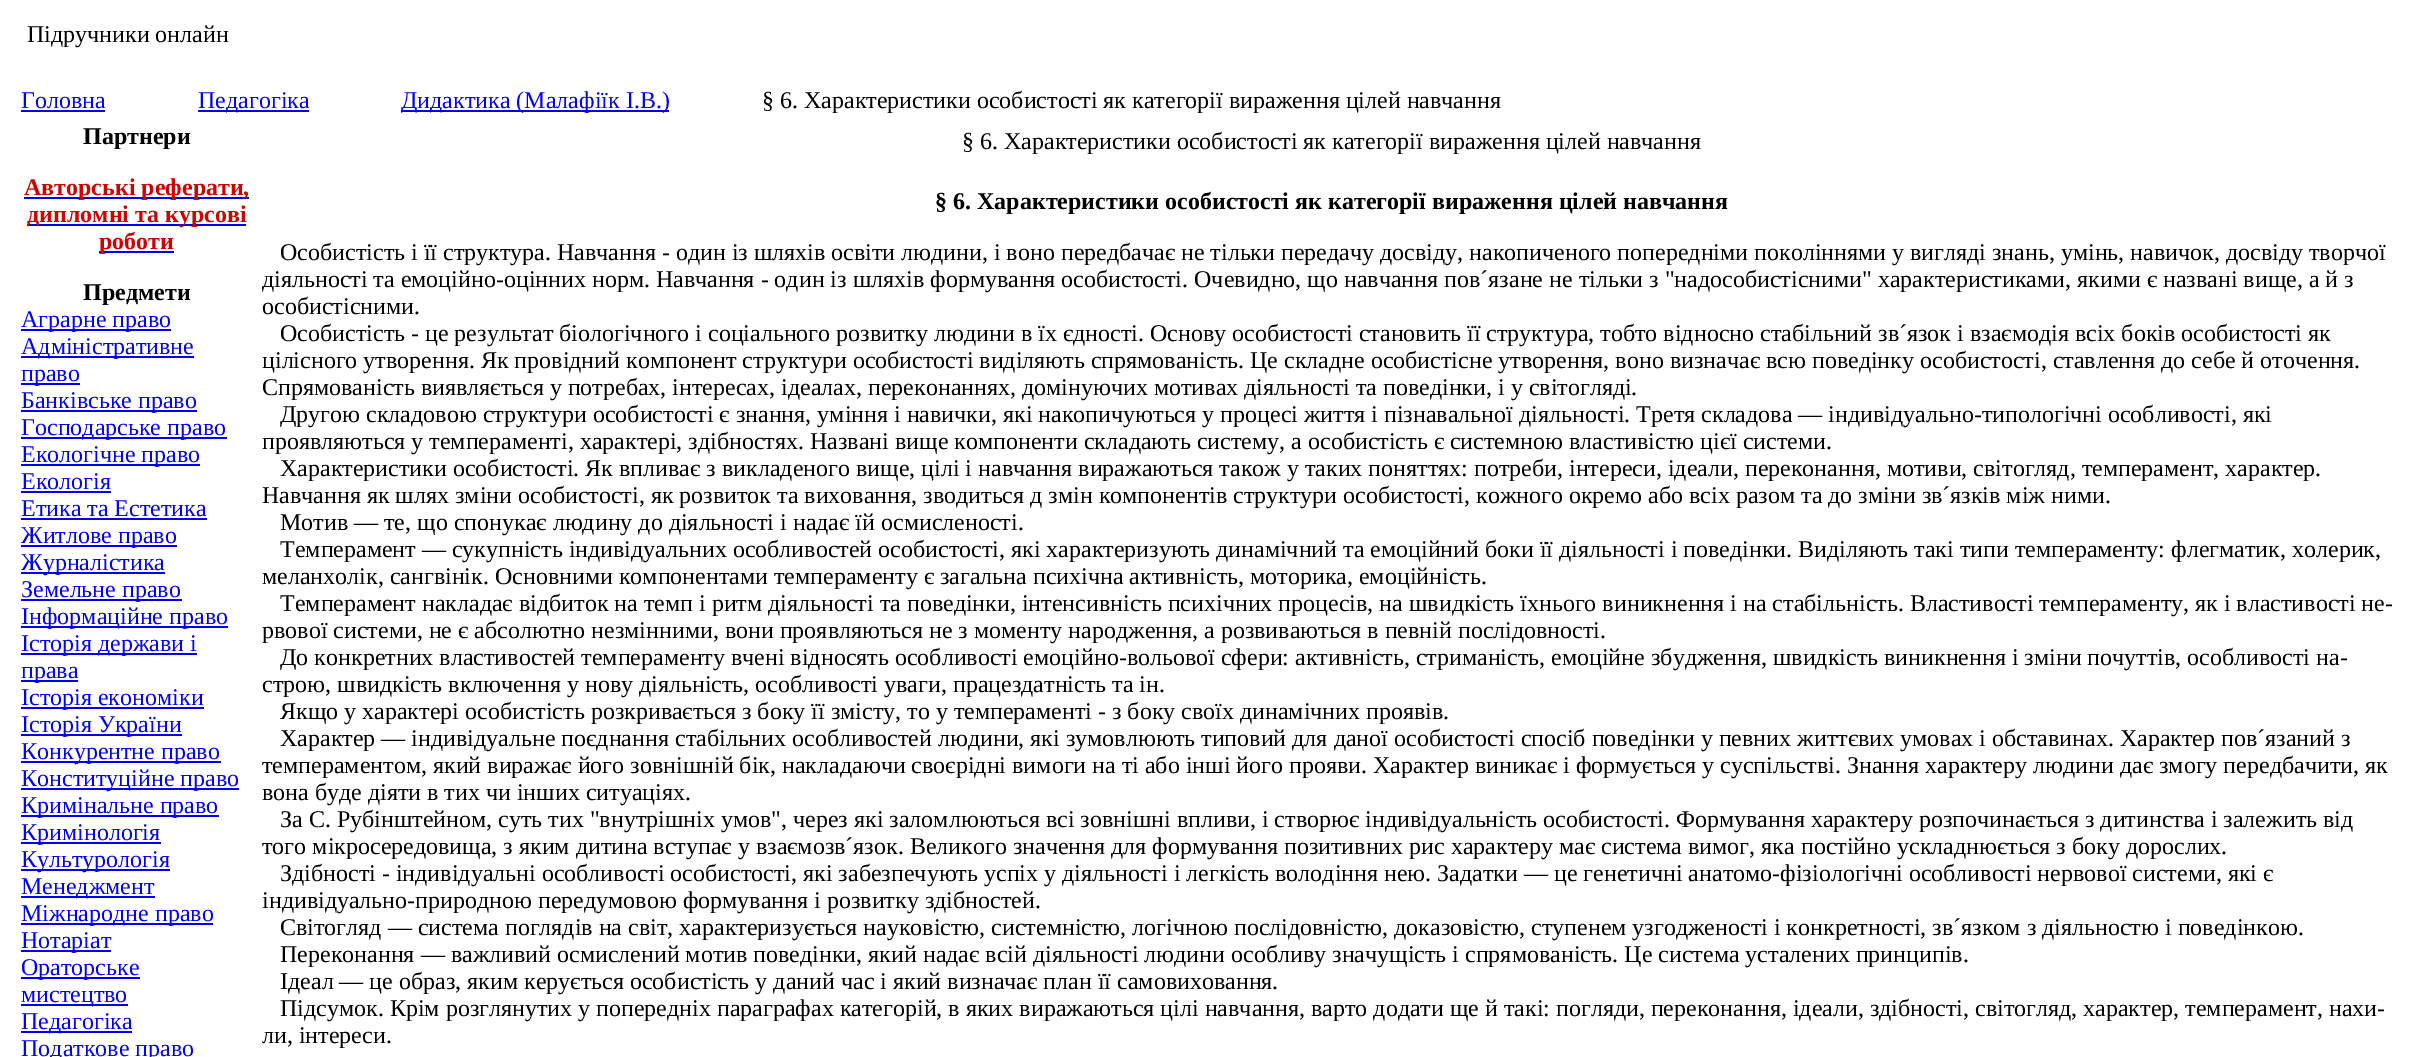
%!PS
<< /PageSize [2432 1057] >> setpagedevice
0 1057 translate 1 -1 scale
4 setmiterlimit
1 setgray
0 0 2432 1057 rectfill
/LiberationSerif-Regular [24 0 0 -24 0 0] selectfont
0 setgray
27 42 moveto (Підручники онлайн) show
0 0 0.933 setrgbcolor
21 108 moveto (Головна) show
21 110 84 2 rectfill
198 110 111 2 rectfill
198 108 moveto (Педагогіка) show
401 110 268 2 rectfill
401 108 moveto (Дидактика \(Малафіїк І.В.\)) show
0 setgray
762 108 moveto (§ 6. Характеристики особистості як категорії вираження цілей навчання) show
/LiberationSerif-Bold [24 0 0 -24 0 0] selectfont
83 144 moveto (Партнери) show
0 0 0.933 setrgbcolor
24 197 225 2 rectfill
0.8 0 0 setrgbcolor
24 195 moveto (Авторські реферати,) show
0 0 0.933 setrgbcolor
27 224 219 2 rectfill
0.8 0 0 setrgbcolor
27 222 moveto (дипломні та курсові) show
0 0 0.933 setrgbcolor
99 251 75 2 rectfill
0.8 0 0 setrgbcolor
99 249 moveto (роботи) show
0 setgray
83 300 moveto (Предмети) show
0 0 0.933 setrgbcolor
21 329 150 2 rectfill
/LiberationSerif-Regular [24 0 0 -24 0 0] selectfont
21 327 moveto (Аграрне право) show
21 356 173 2 rectfill
21 354 moveto (Адміністративне) show
21 383 59 2 rectfill
21 381 moveto (право) show
21 410 176 2 rectfill
21 408 moveto (Банківське право) show
21 437 206 2 rectfill
21 435 moveto (Господарське право) show
21 464 179 2 rectfill
21 462 moveto (Екологічне право) show
21 489 moveto (Екологія) show
21 491 90 2 rectfill
21 516 moveto (Етика та Естетика) show
21 518 186 2 rectfill
21 545 156 2 rectfill
21 543 moveto (Житлове право) show
21 572 144 2 rectfill
21 570 moveto (Журналістика) show
21 599 161 2 rectfill
21 597 moveto (Земельне право) show
21 626 207 2 rectfill
21 624 moveto (Інформаційне право) show
21 653 176 2 rectfill
21 651 moveto (Історія держави і) show
21 680 57 2 rectfill
21 678 moveto (права) show
21 707 183 2 rectfill
21 705 moveto (Історія економіки) show
21 734 161 2 rectfill
21 732 moveto (Історія України) show
21 761 200 2 rectfill
21 759 moveto (Конкурентне право) show
21 788 218 2 rectfill
21 786 moveto (Конституційне право) show
21 815 198 2 rectfill
21 813 moveto (Кримінальне право) show
21 842 140 2 rectfill
21 840 moveto (Кримінологія) show
21 869 149 2 rectfill
21 867 moveto (Культурологія) show
21 896 134 2 rectfill
21 894 moveto (Менеджмент) show
21 923 192 2 rectfill
21 921 moveto (Міжнародне право) show
21 950 90 2 rectfill
21 948 moveto (Нотаріат) show
21 977 119 2 rectfill
21 975 moveto (Ораторське) show
21 1004 107 2 rectfill
21 1002 moveto (мистецтво) show
21 1031 111 2 rectfill
21 1029 moveto (Педагогіка) show
21 1056 moveto (Податкове право) show
0 setgray
962 149 moveto (§ 6. Характеристики особистості як категорії вираження цілей навчання) show
/LiberationSerif-Bold [24 0 0 -24 0 0] selectfont
935 209 moveto (§ 6. Характеристики особистості як категорії вираження цілей навчання) show
/LiberationSerif-Regular [24 0 0 -24 0 0] selectfont
280 260 moveto (Особистість і її структура. Навчання - один із шляхів освіти людини, і воно передбачає не тільки передачу досвіду, накопиченого попередніми поколіннями у вигляді знань, умінь, навичок, досвіду творчої) show
262 287 moveto (діяльності та емоційно-оцінних норм. Навчання - один із шляхів формування особистості. Очевидно, що навчання пов´язане не тільки з "надособистісними" характеристиками, якими є названі вище, а й з) show
262 314 moveto (особистісними.) show
280 341 moveto (Особистість - це результат біологічного і соціального розвитку людини в їх єдності. Основу особистості становить її структура, тобто відносно стабільний зв´язок і взаємодія всіх боків особистості як) show
262 368 moveto (цілісного утворення. Як провідний компонент структури особистості виділяють спрямованість. Це складне особистісне утворення, воно визначає всю поведінку особистості, ставлення до себе й оточення.) show
262 395 moveto (Спрямованість виявляється у потребах, інтересах, ідеалах, переконаннях, домінуючих мотивах діяльності та поведінки, і у світогляді.) show
280 422 moveto (Другою складовою структури особистості є знання, уміння і навички, які накопичуються у процесі життя і пізнавальної діяльності. Третя складова — індивідуально-типологічні особливості, які) show
262 449 moveto (проявляються у темпераменті, характері, здібностях. Названі вище компоненти складають систему, а особистість є системною властивістю цієї системи.) show
280 476 moveto (Характеристики особистості. Як впливає з викладеного вище, цілі і навчання виражаються також у таких поняттях: потреби, інтереси, ідеали, переконання, мотиви, світогляд, темперамент, характер.) show
262 503 moveto (Навчання як шлях зміни особистості, як розвиток та виховання, зводиться д змін компонентів структури особистості, кожного окремо або всіх разом та до зміни зв´язків між ними.) show
280 530 moveto (Мотив — те, що спонукає людину до діяльності і надає їй осмисленості.) show
280 557 moveto (Темперамент — сукупність індивідуальних особливостей особистості, які характеризують динамічний та емоційний боки її діяльності і поведінки. Виділяють такі типи темпераменту: флегматик, холерик,) show
262 584 moveto (меланхолік, сангвінік. Основними компонентами темпераменту є загальна психічна активність, моторика, емоційність.) show
280 611 moveto (Темперамент накладає відбиток на темп і ритм діяльності та поведінки, інтенсивність психічних процесів, на швидкість їхнього виникнення і на стабільність. Властивості темпераменту, як і властивості не-) show
262 638 moveto (рвової системи, не є абсолютно незмінними, вони проявляються не з моменту народження, а розвиваються в певній послідовності.) show
280 665 moveto (До конкретних властивостей темпераменту вчені відносять особливості емоційно-вольової сфери: активність, стриманість, емоційне збудження, швидкість виникнення і зміни почуттів, особливості на-) show
262 692 moveto (строю, швидкість включення у нову діяльність, особливості уваги, працездатність та ін.) show
280 719 moveto (Якщо у характері особистість розкривається з боку її змісту, то у темпераменті - з боку своїх динамічних проявів.) show
280 746 moveto (Характер — індивідуальне поєднання стабільних особливостей людини, які зумовлюють типовий для даної особистості спосіб поведінки у певних життєвих умовах і обставинах. Характер пов´язаний з) show
262 773 moveto (темпераментом, який виражає його зовнішній бік, накладаючи своєрідні вимоги на ті або інші його прояви. Характер виникає і формується у суспільстві. Знання характеру людини дає змогу передбачити, як) show
262 800 moveto (вона буде діяти в тих чи інших ситуаціях.) show
280 827 moveto (За С. Рубінштейном, суть тих "внутрішніх умов", через які заломлюються всі зовнішні впливи, і створює індивідуальність особистості. Формування характеру розпочинається з дитинства і залежить від) show
262 854 moveto (того мікросередовища, з яким дитина вступає у взаємозв´язок. Великого значення для формування позитивних рис характеру має система вимог, яка постійно ускладнюється з боку дорослих.) show
280 881 moveto (Здібності - індивідуальні особливості особистості, які забезпечують успіх у діяльності і легкість володіння нею. Задатки — це генетичні анатомо-фізіологічні особливості нервової системи, які є) show
262 908 moveto (індивідуально-природною передумовою формування і розвитку здібностей.) show
280 935 moveto (Світогляд — система поглядів на світ, характеризується науковістю, системністю, логічною послідовністю, доказовістю, ступенем узгодженості і конкретності, зв´язком з діяльностю і поведінкою.) show
280 962 moveto (Переконання — важливий осмислений мотив поведінки, який надає всій діяльності людини особливу значущість і спрямованість. Це система усталених принципів.) show
280 989 moveto (Ідеал — це образ, яким керується особистість у даний час і який визначає план її самовиховання.) show
280 1016 moveto (Підсумок. Крім розглянутих у попередніх параграфах категорій, в яких виражаються цілі навчання, варто додати ще й такі: погляди, переконання, ідеали, здібності, світогляд, характер, темперамент, нахи-) show
262 1043 moveto (ли, інтереси.) show
showpage
